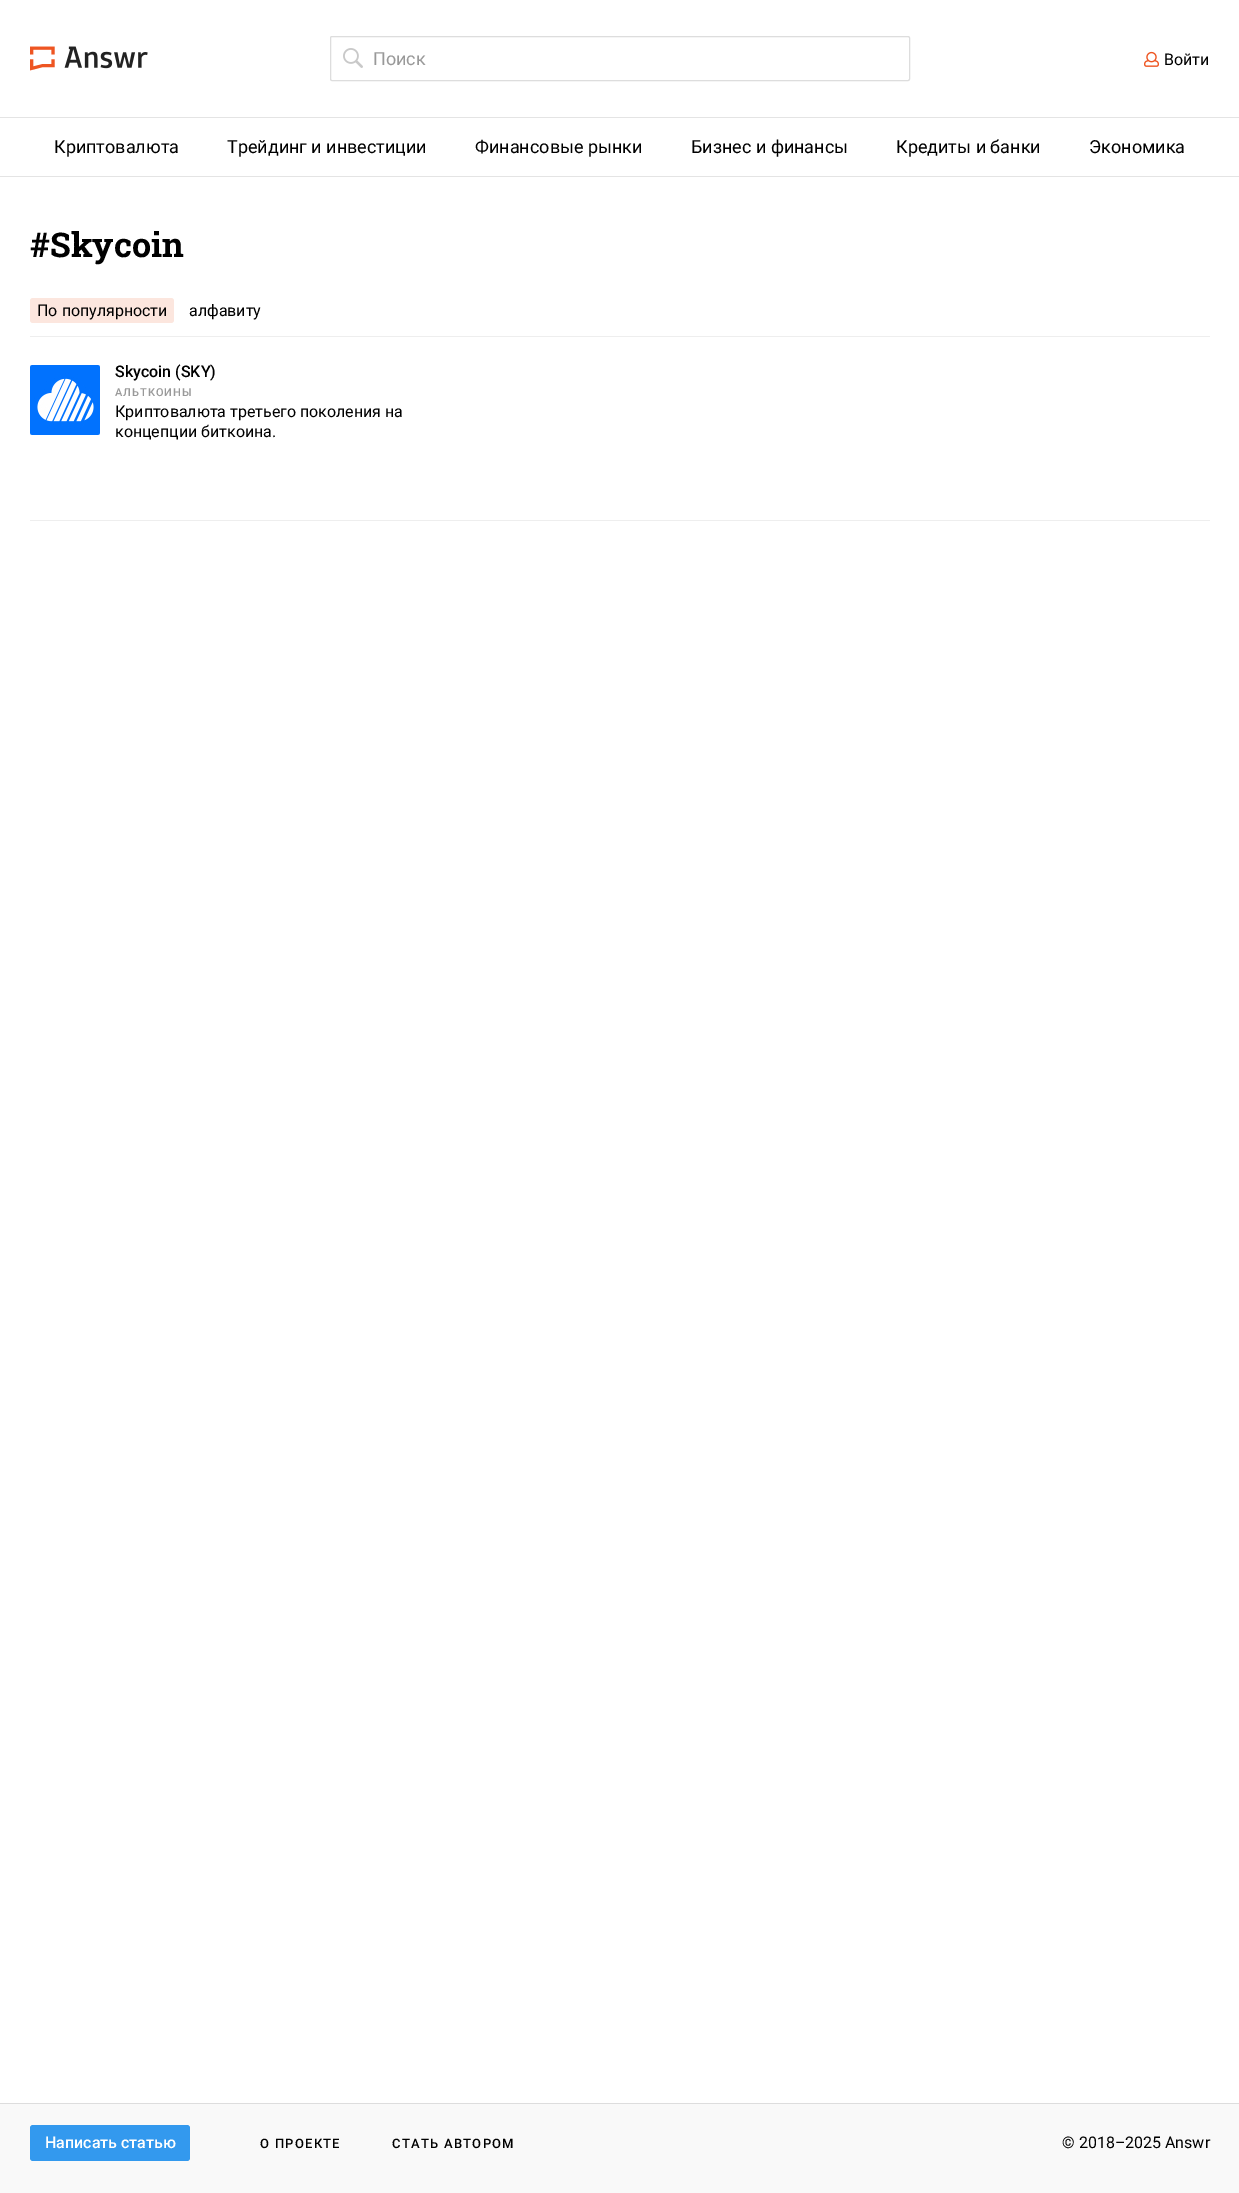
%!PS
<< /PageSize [1239 2193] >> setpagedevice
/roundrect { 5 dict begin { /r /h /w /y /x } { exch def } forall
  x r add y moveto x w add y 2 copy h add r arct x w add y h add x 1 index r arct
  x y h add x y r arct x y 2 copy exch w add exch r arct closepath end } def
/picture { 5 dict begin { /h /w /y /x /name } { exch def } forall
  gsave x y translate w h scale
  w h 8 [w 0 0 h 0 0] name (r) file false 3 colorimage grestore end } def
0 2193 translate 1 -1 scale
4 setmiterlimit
1 setgray
0 0 1239 2193 rectfill
0.894 setgray
0 117 1239 1 rectfill
(img1.rgb) 30 46 118 25 picture
(img2.rgb) 343 48 20 20 picture
0.867 setgray
330.5 36.5 579 44 1.5 roundrect stroke
/Roboto-Regular [18 0 0 -18 0 0] selectfont
0.6 setgray
373 65 moveto (Поиск) show
(img3.rgb) 1144 51 15 16 picture
/Roboto-Regular [16 0 0 -16 0 0] selectfont
0 setgray
1164 65 moveto (Войти) show
0.894 setgray
0 176 1239 1 rectfill
/Roboto-Regular [18 0 0 -18 0 0] selectfont
0 setgray
54 153 moveto (Криптовалюта) show
227 153 moveto (Трейдинг и инвестиции) show
475 153 moveto (Финансовые рынки) show
691 153 moveto (Бизнес и финансы) show
896 153 moveto (Кредиты и банки) show
1089 153 moveto (Экономика) show
0.933 setgray
30 336 1180 1 rectfill
/RobotoSlab-Bold [34 0 0 -34 0 0] selectfont
0 setgray
30 257 moveto (#Skycoin) show
0.988 0.902 0.871 setrgbcolor
30 298 144 25 3 roundrect fill
/Roboto-Regular [16 0 0 -16 0 0] selectfont
0 setgray
37 316 moveto (По популярности) show
189 316 moveto (алфавиту) show
(img4.rgb) 30 365 70 70 picture
/Roboto-Medium [16 0 0 -16 0 0] selectfont
115 377 moveto (Skycoin \(SKY\)) show
/Roboto-Medium [11 0 0 -11 0 0] selectfont
0.6 setgray
115 396 moveto 1 0 (АЛЬТКОИНЫ) ashow
/Roboto-Regular [16 0 0 -16 0 0] selectfont
0 setgray
115 417 moveto (Криптовалюта третьего поколения на) show
115 437 moveto (концепции биткоина.) show
0.933 setgray
30 520 1180 1 rectfill
0.976 setgray
0 2104 1239 89 rectfill
0.867 setgray
0 2103 1239 1 rectfill
0.2 0.6 0.933 setrgbcolor
30 2125 160 36 3 roundrect fill
/Roboto-Medium [16 0 0 -16 0 0] selectfont
1 setgray
45 2148 moveto (Написать статью) show
/Roboto-Medium [13 0 0 -13 0 0] selectfont
0 setgray
260 2148 moveto 1.25 0 (О ПРОЕКТЕ) ashow
392 2148 moveto 1.25 0 (СТАТЬ АВТОРОМ) ashow
/Roboto-Regular [16 0 0 -16 0 0] selectfont
1062 2148 moveto (© 2018–2025 Answr) show
showpage
